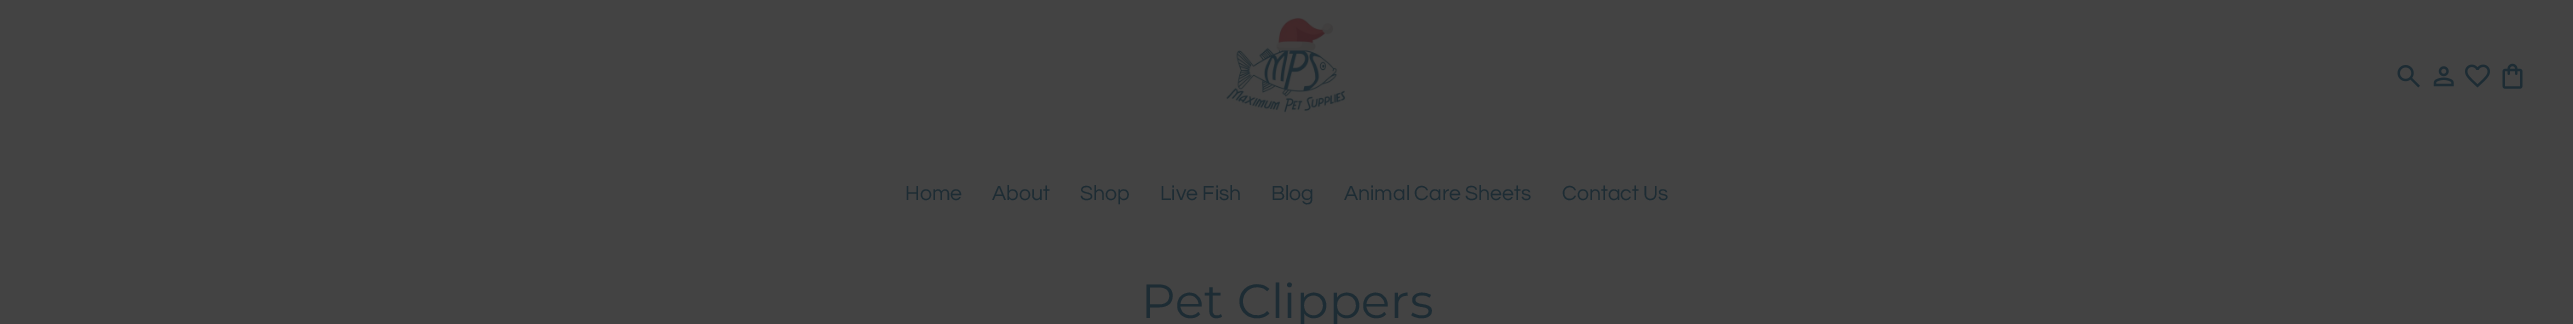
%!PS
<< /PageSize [2573 324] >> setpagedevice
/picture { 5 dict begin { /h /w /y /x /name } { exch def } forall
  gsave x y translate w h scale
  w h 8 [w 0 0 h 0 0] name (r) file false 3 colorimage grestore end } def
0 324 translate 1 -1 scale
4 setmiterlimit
0.263 setgray
0 0 2573 324 rectfill
(img1.rgb) 1226 16 122 97 picture
(img2.rgb) 2397 65 23 23 picture
(img3.rgb) 2433 66 21 21 picture
(img4.rgb) 2465 64 25 24 picture
(img5.rgb) 2502 63 21 26 picture
/Questrial-Regular [21.25 0 0 -21.25 0 0] selectfont
0.114 0.173 0.204 setrgbcolor
905 200 moveto (Home) show
992 200 moveto (About) show
1080 200 moveto (Shop) show
1160 200 moveto (Live Fish) show
1271 200 moveto (Blog) show
1344 200 moveto (Animal Care Sheets) show
1562 200 moveto (Contact Us) show
/Montserrat-Regular [48 0 0 -48 0 0] selectfont
1141 318 moveto (Pet Clippers) show
showpage
